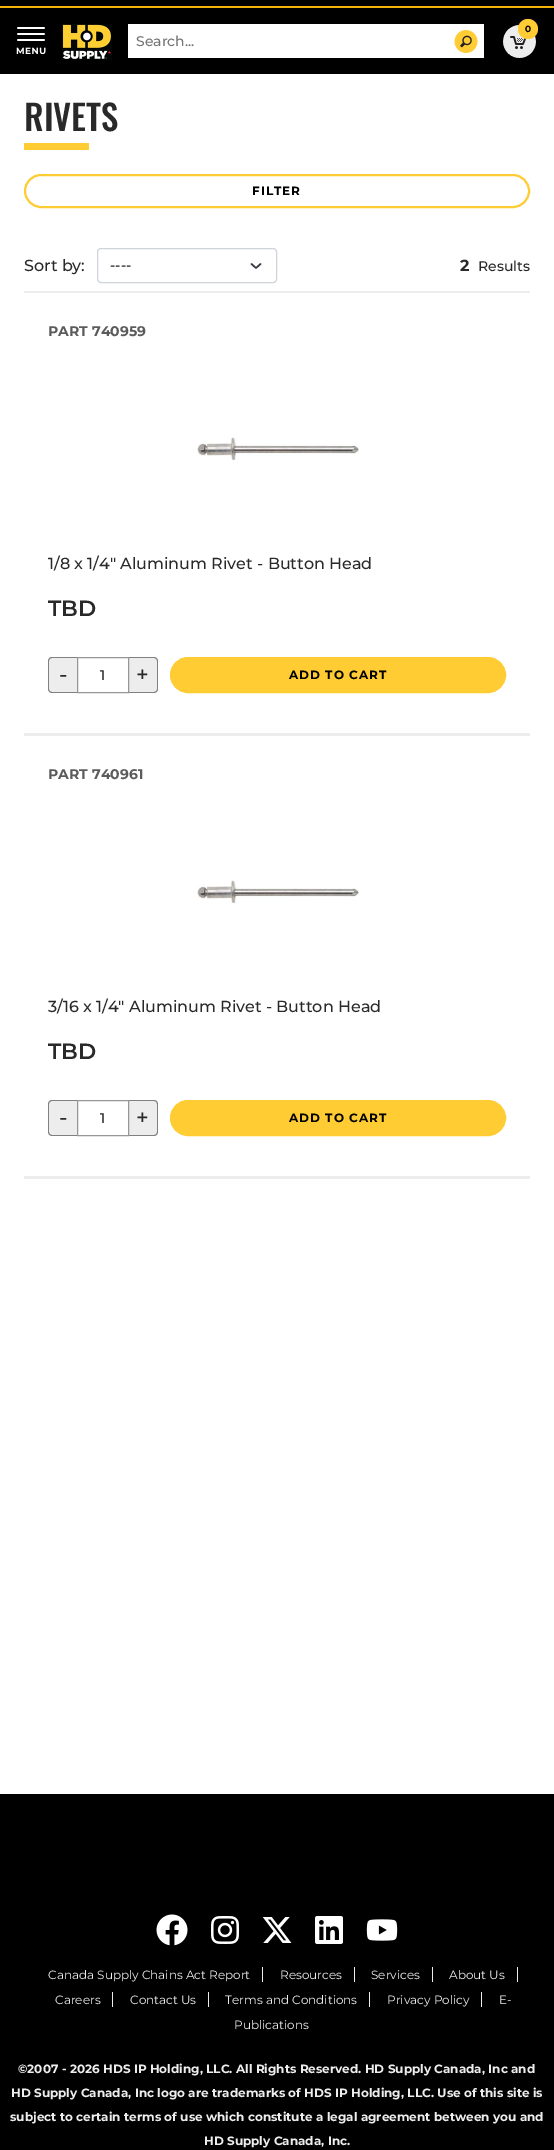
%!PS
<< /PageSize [554 2150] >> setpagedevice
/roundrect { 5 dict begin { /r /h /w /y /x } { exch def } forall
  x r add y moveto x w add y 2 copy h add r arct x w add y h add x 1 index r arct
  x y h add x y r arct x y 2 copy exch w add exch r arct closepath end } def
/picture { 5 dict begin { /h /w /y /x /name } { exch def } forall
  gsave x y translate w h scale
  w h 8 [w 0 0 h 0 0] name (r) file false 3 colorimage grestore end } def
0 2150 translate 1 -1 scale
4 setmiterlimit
1 setgray
0 0 554 2150 rectfill
0 setgray
0 0 554 6 rectfill
0.953 0.702 0.024 setrgbcolor
0 6 554 2 rectfill
0 setgray
0 8 554 66 rectfill
(img1.rgb) 16 27 30 28 picture
(img2.rgb) 62 24 50 36 picture
1 setgray
128 24 356 34 rectfill
/Montserrat-Medium [14 0 0 -14 0 0] selectfont
0.459 setgray
136 46 moveto (Search...) show
(img3.rgb) 454 30 24 23 picture
(img4.rgb) 503 25 33 33 picture
1 0.8 0.2 setrgbcolor
newpath 528 29 10 0 360 arc closepath fill
/Montserrat-Bold [9 0 0 -9 0 0] selectfont
0 setgray
525 32 moveto (0) show
/Oswald-Medium [35 0 0 -35 0 0] selectfont
0.161 setgray
24 131 moveto (RIVETS) show
1 0.8 0.2 setrgbcolor
24 143 65 7 rectfill
2 setlinewidth
25 175 504 32 16 roundrect stroke
/Montserrat-Bold [12 0 0 -12 0 0] selectfont
0 setgray
252 195 moveto 1 0 (FILTER) ashow
0.929 setgray
24 291 506 2 rectfill
/Montserrat-Medium [16 0 0 -16 0 0] selectfont
0.161 setgray
24 271 moveto (Sort by:) show
0.204 0.227 0.251 setrgbcolor
1.5 setlinewidth
1 setlinecap
1 setlinejoin
newpath 251.5 264 moveto 256 268 lineto 260.5 264 lineto stroke
0.808 0.831 0.855 setrgbcolor
1 setlinewidth
0 setlinecap
0 setlinejoin
97.5 248.5 179 34 3.5 roundrect stroke
/Montserrat-Medium [14 0 0 -14 0 0] selectfont
0.129 0.145 0.161 setrgbcolor
110 270 moveto (----) show
/Montserrat-Bold [16 0 0 -16 0 0] selectfont
0.161 setgray
460 271 moveto (2) show
/Montserrat-Medium [14 0 0 -14 0 0] selectfont
478 271 moveto (Results) show
0.929 setgray
24 733 506 3 rectfill
/Montserrat-Bold [14 0 0 -14 0 0] selectfont
0.357 setgray
48 336 moveto (PART 740959) show
(img5.rgb) 197 437 162 24 picture
/Montserrat-Medium [16 0 0 -16 0 0] selectfont
0.161 setgray
48 569 moveto (1/8 x 1/4" Aluminum Rivet - Button Head) show
/Montserrat-SemiBold [22 0 0 -22 0 0] selectfont
48 616 moveto (TBD) show
0.929 setgray
newpath 52 657 moveto 78 657 lineto 78 693 lineto 52 693 lineto 50 693 48 691 48 689 curveto 48 661 lineto 48 659 50 657 52 657 curveto closepath fill
0.502 setgray
newpath 52 657 moveto 78 657 lineto 78 693 lineto 52 693 lineto 50 693 48 691 48 689 curveto 48 661 lineto 48 659 50 657 52 657 curveto closepath 52 658 moveto 78 658 lineto 78 692 lineto 52 692 lineto 50.5 692 49 690.5 49 689 curveto 49 661 lineto 49 659.5 50.5 658 52 658 curveto closepath eofill
/Montserrat-Medium [22 0 0 -22 0 0] selectfont
0.161 setgray
59 682 moveto 1 0 (-) ashow
0.929 setgray
newpath 128 657 moveto 154 657 lineto 156 657 158 659 158 661 curveto 158 689 lineto 158 691 156 693 154 693 curveto 128 693 lineto closepath fill
0.502 setgray
newpath 128 657 moveto 154 657 lineto 156 657 158 659 158 661 curveto 158 689 lineto 158 691 156 693 154 693 curveto 128 693 lineto closepath 128 658 moveto 154 658 lineto 155.5 658 157 659.5 157 661 curveto 157 689 lineto 157 690.5 155.5 692 154 692 curveto 128 692 lineto closepath eofill
0.592 setgray
77.5 657.5 51 35 rectstroke
/Montserrat-Medium [14 0 0 -14 0 0] selectfont
0.129 0.145 0.161 setrgbcolor
100 680 moveto (1) show
/Montserrat-Medium [22 0 0 -22 0 0] selectfont
0.161 setgray
136 682 moveto 1 0 (+) ashow
1 0.8 0.2 setrgbcolor
170.5 657.5 335 35 17.5 roundrect gsave fill grestore
stroke
/Montserrat-Bold [12 0 0 -12 0 0] selectfont
0 setgray
289 679 moveto 1 0 (ADD TO CART) ashow
0.929 setgray
24 1176 506 3 rectfill
/Montserrat-Bold [14 0 0 -14 0 0] selectfont
0.357 setgray
48 779 moveto (PART 740961) show
(img5.rgb) 197 880 162 24 picture
/Montserrat-Medium [16 0 0 -16 0 0] selectfont
0.161 setgray
48 1012 moveto (3/16 x 1/4" Aluminum Rivet - Button Head) show
/Montserrat-SemiBold [22 0 0 -22 0 0] selectfont
48 1059 moveto (TBD) show
0.929 setgray
newpath 52 1100 moveto 78 1100 lineto 78 1136 lineto 52 1136 lineto 50 1136 48 1134 48 1132 curveto 48 1104 lineto 48 1102 50 1100 52 1100 curveto closepath fill
0.502 setgray
newpath 52 1100 moveto 78 1100 lineto 78 1136 lineto 52 1136 lineto 50 1136 48 1134 48 1132 curveto 48 1104 lineto 48 1102 50 1100 52 1100 curveto closepath 52 1101 moveto 78 1101 lineto 78 1135 lineto 52 1135 lineto 50.5 1135 49 1133.5 49 1132 curveto 49 1104 lineto 49 1102.5 50.5 1101 52 1101 curveto closepath eofill
/Montserrat-Medium [22 0 0 -22 0 0] selectfont
0.161 setgray
59 1125 moveto 1 0 (-) ashow
0.929 setgray
newpath 128 1100 moveto 154 1100 lineto 156 1100 158 1102 158 1104 curveto 158 1132 lineto 158 1134 156 1136 154 1136 curveto 128 1136 lineto closepath fill
0.502 setgray
newpath 128 1100 moveto 154 1100 lineto 156 1100 158 1102 158 1104 curveto 158 1132 lineto 158 1134 156 1136 154 1136 curveto 128 1136 lineto closepath 128 1101 moveto 154 1101 lineto 155.5 1101 157 1102.5 157 1104 curveto 157 1132 lineto 157 1133.5 155.5 1135 154 1135 curveto 128 1135 lineto closepath eofill
0.592 setgray
77.5 1100.5 51 35 rectstroke
/Montserrat-Medium [14 0 0 -14 0 0] selectfont
0.129 0.145 0.161 setrgbcolor
100 1123 moveto (1) show
/Montserrat-Medium [22 0 0 -22 0 0] selectfont
0.161 setgray
136 1125 moveto 1 0 (+) ashow
1 0.8 0.2 setrgbcolor
170.5 1100.5 335 35 17.5 roundrect gsave fill grestore
stroke
/Montserrat-Bold [12 0 0 -12 0 0] selectfont
0 setgray
289 1122 moveto 1 0 (ADD TO CART) ashow
0 1794 554 356 rectfill
(img6.rgb) 156 1914 32 32 picture
(img7.rgb) 211 1916 28 28 picture
(img8.rgb) 262 1917 30 26 picture
(img9.rgb) 315 1916 28 28 picture
(img10.rgb) 366 1919 32 22 picture
/Montserrat-Regular [12 0 0 -12 0 0] selectfont
0.929 setgray
48 1979 moveto (Canada Supply Chains Act Report) show
262 1967 1 15 rectfill
280 1979 moveto (Resources) show
354 1967 1 15 rectfill
371 1979 moveto (Services) show
432 1967 1 15 rectfill
449 1979 moveto (About Us) show
517 1967 1 15 rectfill
55 2004 moveto (Careers) show
112 1992 1 15 rectfill
130 2004 moveto (Contact Us) show
208 1992 1 15 rectfill
225 2004 moveto (Terms and Conditions) show
369 1992 1 15 rectfill
387 2004 moveto (Privacy Policy) show
481 1992 1 15 rectfill
499 2004 moveto (E-) show
234 2029 moveto (Publications) show
/Montserrat-Bold [12 0 0 -12 0 0] selectfont
18 2073 moveto (©2007 - 2026 HDS IP Holding, LLC. All Rights Reserved. HD Supply Canada, Inc and) show
11 2097 moveto (HD Supply Canada, Inc logo are trademarks of HDS IP Holding, LLC. Use of this site is) show
10 2121 moveto (subject to certain terms of use which constitute a legal agreement between you and) show
204 2145 moveto (HD Supply Canada, Inc.) show
showpage
